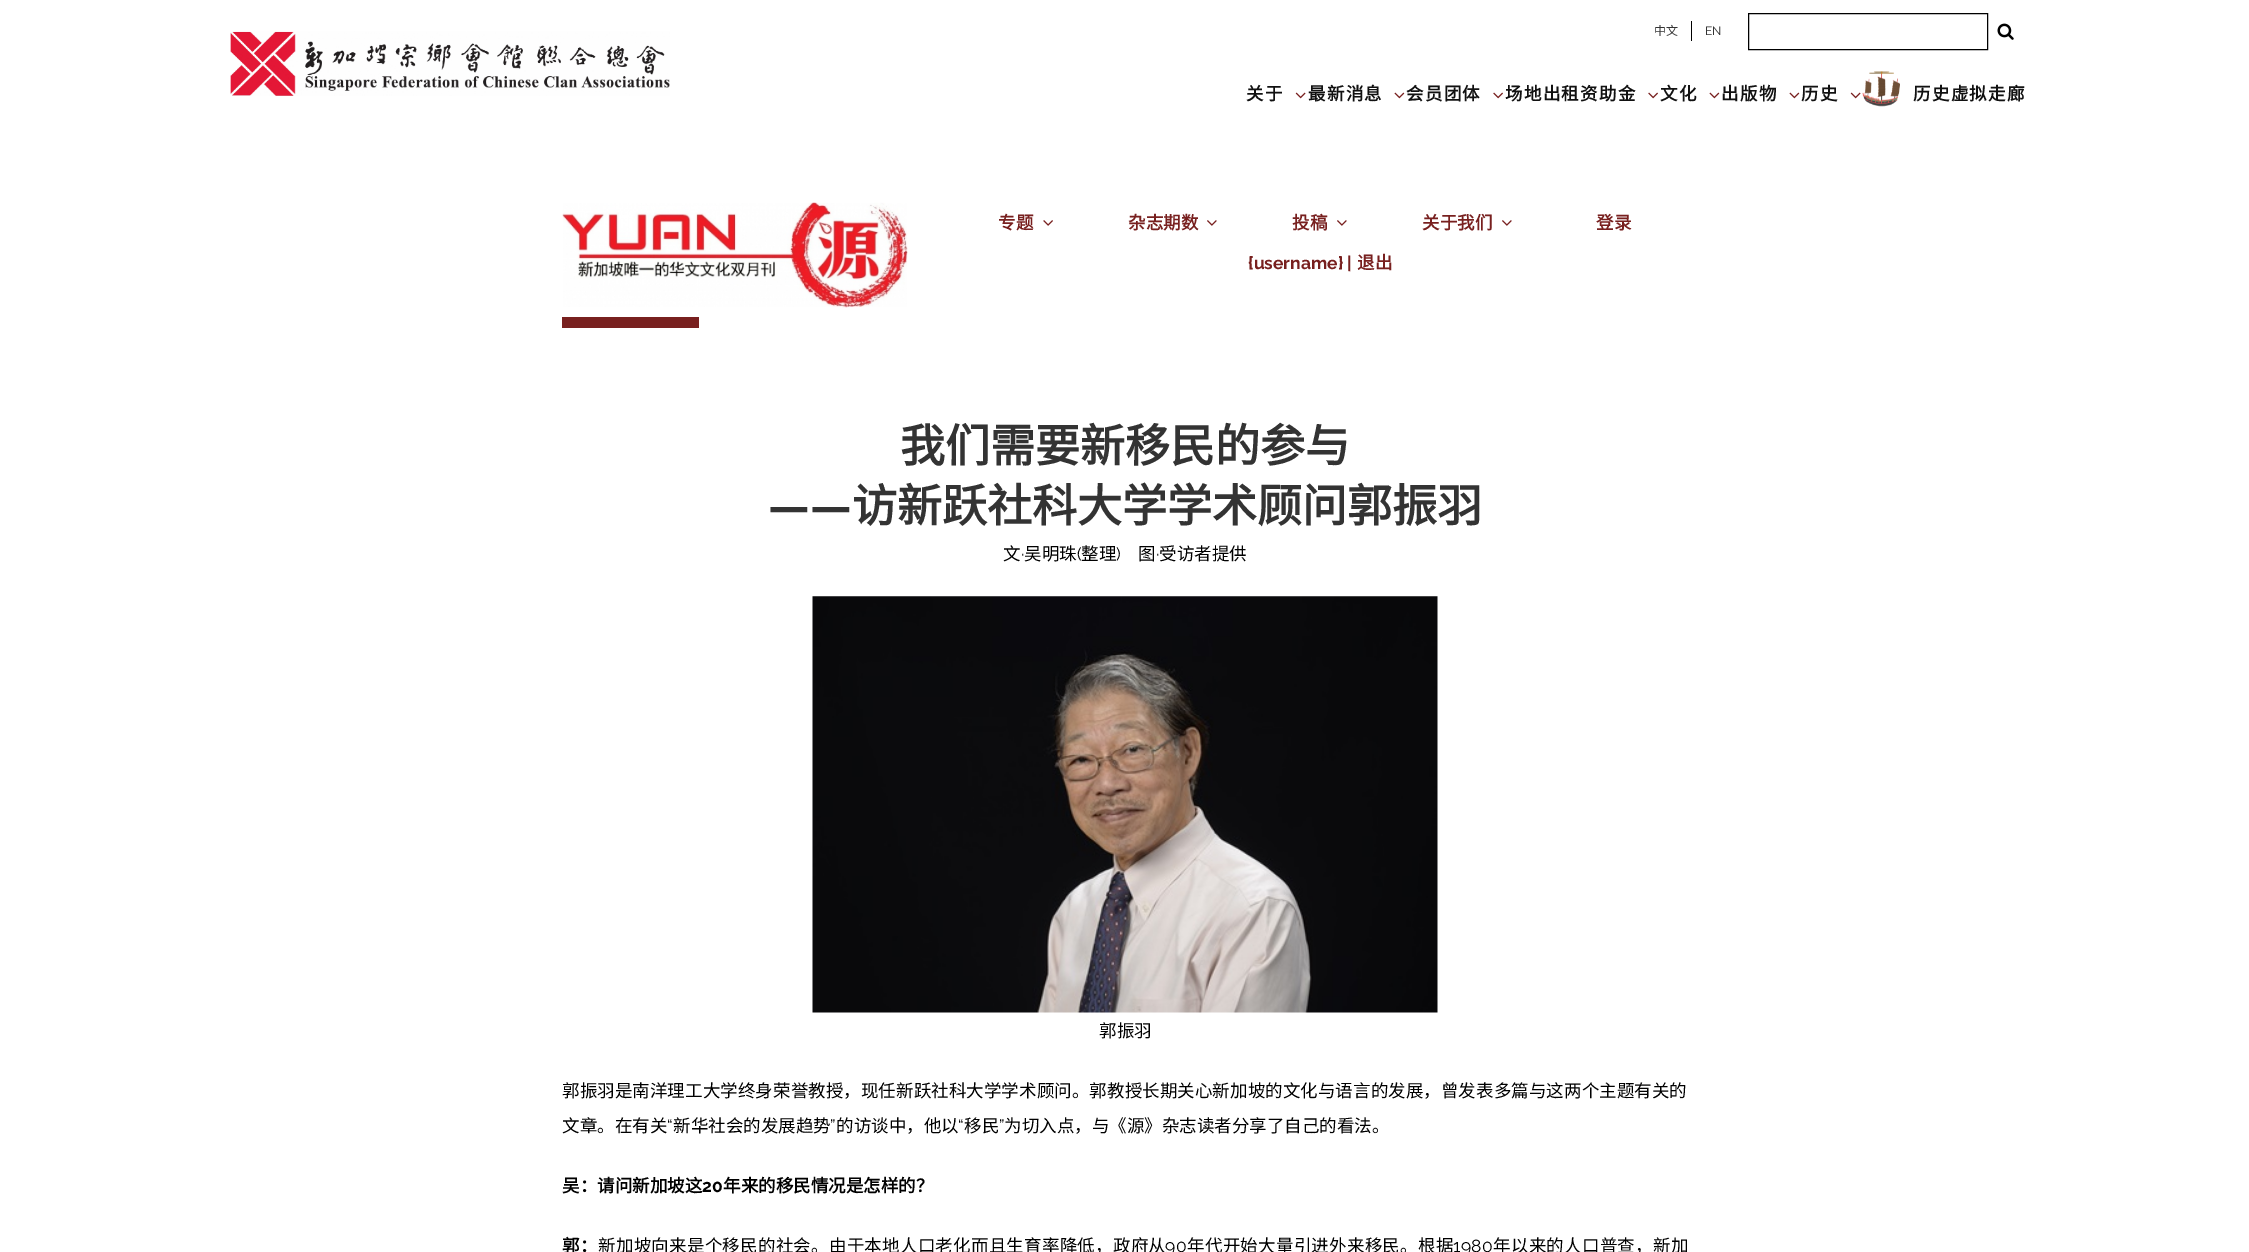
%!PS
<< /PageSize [2249 1252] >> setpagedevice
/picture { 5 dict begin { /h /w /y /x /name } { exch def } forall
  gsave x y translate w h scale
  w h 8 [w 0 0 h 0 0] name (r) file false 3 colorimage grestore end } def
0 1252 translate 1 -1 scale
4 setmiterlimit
1 setgray
0 0 2249 1252 rectfill
(img1.rgb) 230 31 440 65 picture
0 setgray
1691 21 1 20 rectfill
/NotoSansCJKSC-Regular [12 0 0 -12 0 0] selectfont
0.2 setgray
1654 35 moveto (中文) show
/Raleway-Regular [12 0 0 -12 0 0] selectfont
1705 35 moveto (EN) show
0 setgray
1748.5 13.5 239 36 rectstroke
(img2.rgb) 1997 23 17 17 picture
/NotoSansCJKSC-Bold [17.5 0 0 -17.5 0 0] selectfont
0.067 setgray
1246 100 moveto 1.25 0 (关于) ashow
(img3.rgb) 1295 92 11 7 picture
1308 100 moveto 1.25 0 (最新消息) ashow
(img4.rgb) 1394 92 11 7 picture
1406 100 moveto 1.25 0 (会员团体) ashow
(img5.rgb) 1493 92 10 7 picture
1505 100 moveto 1.25 0 (场地出租资助金) ashow
(img5.rgb) 1648 92 10 7 picture
1660 100 moveto 1.25 0 (文化) ashow
(img4.rgb) 1709 92 11 7 picture
1721 100 moveto 1.25 0 (出版物) ashow
(img4.rgb) 1789 92 11 7 picture
1801 100 moveto 1.25 0 (历史) ashow
(img3.rgb) 1850 92 11 7 picture
(img6.rgb) 1862 71 38 36 picture
1913 100 moveto 1.25 0 (历史虚拟走廊) ashow
(img7.rgb) 562 202 346 106 picture
0.471 0.125 0.122 setrgbcolor
562 317 137 11 rectfill
998 229 moveto (专题) show
(img8.rgb) 1043 220 10 6 picture
1128 229 moveto (杂志期数) show
(img9.rgb) 1207 220 10 6 picture
1292 229 moveto (投稿) show
(img9.rgb) 1337 220 10 6 picture
1422 229 moveto (关于我们) show
(img9.rgb) 1502 220 10 6 picture
1596 229 moveto (登录) show
/Raleway-Bold [17.5 0 0 -17.5 0 0] selectfont
1248 269 moveto ({username} |) show
/NotoSansCJKSC-Bold [17.5 0 0 -17.5 0 0] selectfont
1357 269 moveto (退出) show
/NotoSansCJKSC-Bold [45 0 0 -45 0 0] selectfont
0.2 setgray
900 462 moveto (我们需要新移民的参与) show
/Raleway-Bold [45 0 0 -45 0 0] selectfont
768 522 moveto (——) show
/NotoSansCJKSC-Bold [45 0 0 -45 0 0] selectfont
852 522 moveto (访新跃社科大学学术顾问郭振羽) show
/NotoSansCJKSC-Regular [17.5 0 0 -17.5 0 0] selectfont
0 setgray
1003 560 moveto (文) show
/Raleway-Regular [17.5 0 0 -17.5 0 0] selectfont
1021 560 moveto (·) show
/NotoSansCJKSC-Regular [17.5 0 0 -17.5 0 0] selectfont
1024 560 moveto (吴明珠) show
/Raleway-Regular [17.5 0 0 -17.5 0 0] selectfont
1077 560 moveto (\() show
/NotoSansCJKSC-Regular [17.5 0 0 -17.5 0 0] selectfont
1081 560 moveto (整理) show
/Raleway-Regular [17.5 0 0 -17.5 0 0] selectfont
1116 560 moveto (\)) show
/NotoSansCJKSC-Regular [17.5 0 0 -17.5 0 0] selectfont
1138 560 moveto (图) show
/Raleway-Regular [17.5 0 0 -17.5 0 0] selectfont
1156 560 moveto (·) show
/NotoSansCJKSC-Regular [17.5 0 0 -17.5 0 0] selectfont
1159 560 moveto (受访者提供) show
(img10.rgb) 812 596 626 417 picture
1099 1037 moveto (郭振羽) show
562 1097 moveto 0.08 0 (郭振羽是南洋理工大学终身荣誉教授，现任新跃社科大学学术顾问。郭教授长期关心新加坡的文化与语言的发展，曾发表多篇与这两个主题有关的) ashow
562 1132 moveto (文章。在有关) show
/Raleway-Regular [17.5 0 0 -17.5 0 0] selectfont
667 1132 moveto (“) show
/NotoSansCJKSC-Regular [17.5 0 0 -17.5 0 0] selectfont
673 1132 moveto (新华社会的发展趋势) show
/Raleway-Regular [17.5 0 0 -17.5 0 0] selectfont
830 1132 moveto (”) show
/NotoSansCJKSC-Regular [17.5 0 0 -17.5 0 0] selectfont
836 1132 moveto (的访谈中，他以) show
/Raleway-Regular [17.5 0 0 -17.5 0 0] selectfont
958 1132 moveto (“) show
/NotoSansCJKSC-Regular [17.5 0 0 -17.5 0 0] selectfont
964 1132 moveto (移民) show
/Raleway-Regular [17.5 0 0 -17.5 0 0] selectfont
999 1132 moveto (”) show
/NotoSansCJKSC-Regular [17.5 0 0 -17.5 0 0] selectfont
1004 1132 moveto (为切入点，与《源》杂志读者分享了自己的看法。) show
/NotoSansCJKSC-Bold [17.5 0 0 -17.5 0 0] selectfont
562 1192 moveto (吴：请问新加坡这) show
/Raleway-Bold [17.5 0 0 -17.5 0 0] selectfont
702 1192 moveto (20) show
/NotoSansCJKSC-Bold [17.5 0 0 -17.5 0 0] selectfont
723 1192 moveto (年来的移民情况是怎样的？) show
562 1252 moveto (郭：) show
/NotoSansCJKSC-Regular [17.5 0 0 -17.5 0 0] selectfont
598 1252 moveto 0.25 0 (新加坡向来是个移民的社会。由于本地人口老化而且生育率降低，政府从) ashow
/Raleway-Regular [17.5 0 0 -17.5 0 0] selectfont
1165 1252 moveto 0.25 0 (90) ashow
/NotoSansCJKSC-Regular [17.5 0 0 -17.5 0 0] selectfont
1187 1252 moveto 0.25 0 (年代开始大量引进外来移民。根据) ashow
/Raleway-Regular [17.5 0 0 -17.5 0 0] selectfont
1453 1252 moveto 0.25 0 (1980) ashow
/NotoSansCJKSC-Regular [17.5 0 0 -17.5 0 0] selectfont
1493 1252 moveto 0.25 0 (年以来的人口普查，新加) ashow
showpage
